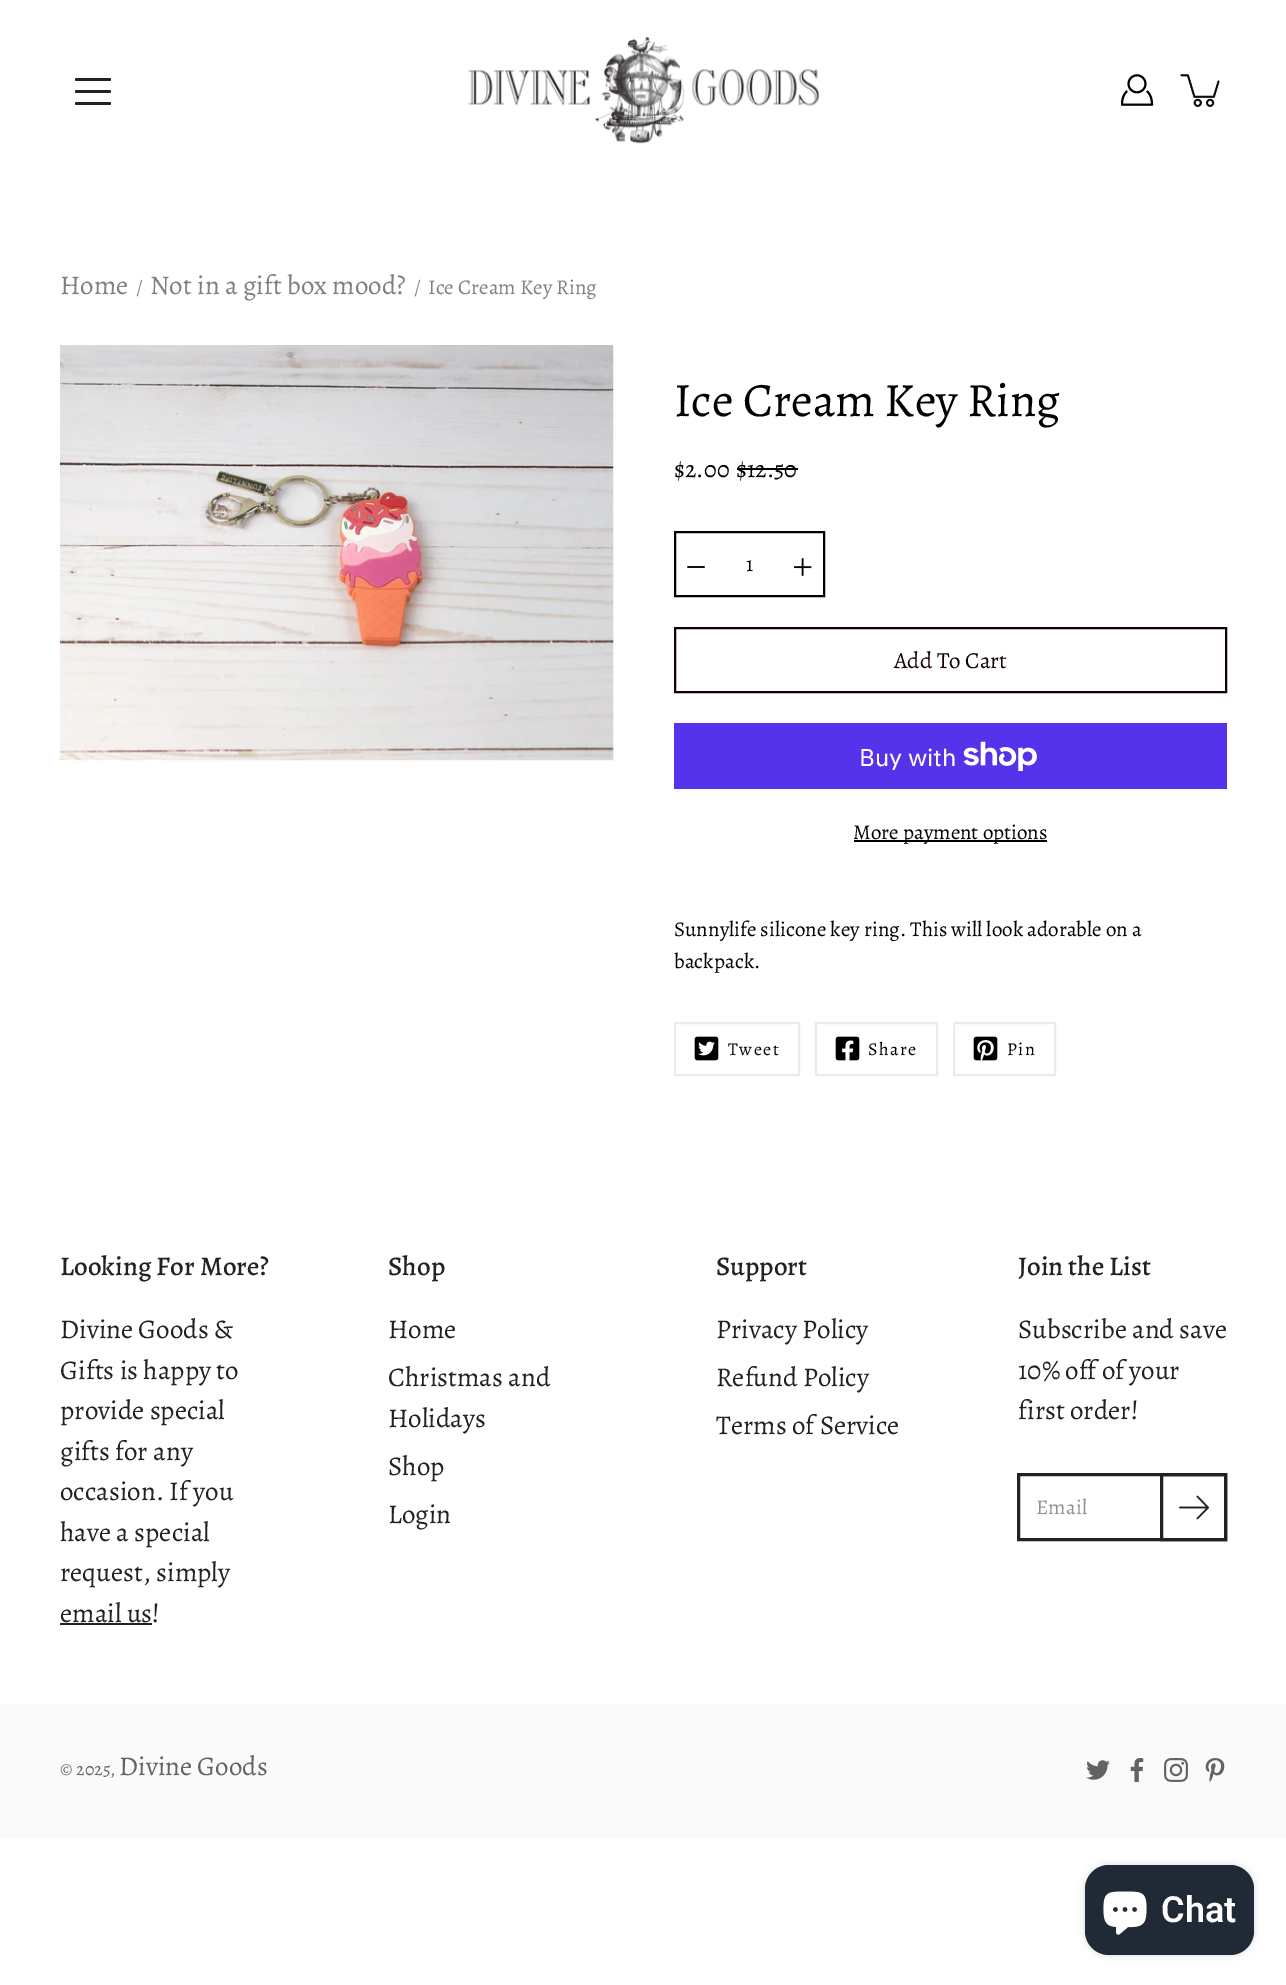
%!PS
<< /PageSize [1286 1985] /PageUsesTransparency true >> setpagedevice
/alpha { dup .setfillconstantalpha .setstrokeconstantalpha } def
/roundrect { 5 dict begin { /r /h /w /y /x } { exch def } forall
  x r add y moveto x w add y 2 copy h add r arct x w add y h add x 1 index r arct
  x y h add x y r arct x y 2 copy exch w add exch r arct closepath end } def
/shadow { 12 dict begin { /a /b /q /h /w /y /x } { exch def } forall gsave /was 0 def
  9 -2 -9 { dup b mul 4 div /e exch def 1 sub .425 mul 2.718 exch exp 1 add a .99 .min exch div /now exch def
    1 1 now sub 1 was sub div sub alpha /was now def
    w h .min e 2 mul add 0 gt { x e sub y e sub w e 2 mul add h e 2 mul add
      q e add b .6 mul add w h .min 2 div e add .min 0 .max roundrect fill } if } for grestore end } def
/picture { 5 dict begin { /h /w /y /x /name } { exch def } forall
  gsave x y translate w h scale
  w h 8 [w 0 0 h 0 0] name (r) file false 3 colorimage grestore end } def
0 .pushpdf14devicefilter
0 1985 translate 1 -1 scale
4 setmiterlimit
1 setgray
0 0 1286 1985 rectfill
(img1.rgb) 468 36 352 108 picture
0.133 setgray
75 90 36 3 1.5 roundrect fill
75 78 36 3 1.5 roundrect fill
75 102 36 3 1.5 roundrect fill
(img2.rgb) 1121 74 33 32 picture
(img3.rgb) 1180 74 40 33 picture
/Alegreya-Regular [27 0 0 -27 0 0] selectfont
0.502 setgray
60 294 moveto (Home) show
/Alegreya-Regular [21 0 0 -21 0 0] selectfont
136 294 moveto (/) show
/Alegreya-Regular [27 0 0 -27 0 0] selectfont
150 294 moveto (Not in a gift box mood?) show
/Alegreya-Regular [21 0 0 -21 0 0] selectfont
414 294 moveto (/) show
428 294 moveto (Ice Cream Key Ring) show
(img4.rgb) 60 345 554 416 picture
/Alegreya-Regular [48 0 0 -48 0 0] selectfont
0 setgray
674 416 moveto (Ice Cream Key Ring) show
/Alegreya-Regular [24 0 0 -24 0 0] selectfont
674 477 moveto ($2.00) show
736 477 moveto ($12.50) show
737 468 61 2 rectfill
2 setlinewidth
675 532 149 64 rectstroke
(img5.rgb) 687 566 18 2 picture
/Alegreya-Regular [21 0 0 -21 0 0] selectfont
746 571 moveto (1) show
(img6.rgb) 794 558 18 18 picture
0.071 0.008 0.008 setrgbcolor
675 628 551 64 rectstroke
/Alegreya-Regular [23 0 0 -23 0 0] selectfont
894 668 moveto (Add To Cart) show
0.329 0.2 0.922 setrgbcolor
674 723 553 66 rectfill
/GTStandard-Regular [24 0 0 -24 0 0] selectfont
1 setgray
859 766 moveto (Buy with) show
(img7.rgb) 963 741 74 30 picture
0 setgray
854 840 193 2 rectfill
/Alegreya-Regular [21 0 0 -21 0 0] selectfont
853 839 moveto (More payment options) show
674 936 moveto (Sunnylife silicone key ring. This will look adorable on a) show
674 968 moveto (backpack.) show
0.922 setgray
675 1023 124 52 rectstroke
(img8.rgb) 694 1036 25 25 picture
/Alegreya-Regular [18 0 0 -18 0 0] selectfont
0 setgray
728 1055 moveto 1.5 0 (Tweet) ashow
0.922 setgray
816 1023 121 52 rectstroke
(img9.rgb) 835 1036 25 25 picture
0 setgray
868 1055 moveto 1.5 0 (Share) ashow
0.922 setgray
954 1023 101 52 rectstroke
(img10.rgb) 973 1036 25 25 picture
0 setgray
1007 1055 moveto 1.5 0 (Pin) ashow
/Alegreya-Medium [27 0 0 -27 0 0] selectfont
0.133 setgray
60 1275 moveto (Looking For More?) show
/Alegreya-Regular [27 0 0 -27 0 0] selectfont
60 1338 moveto (Divine Goods &) show
60 1379 moveto (Gifts is happy to) show
60 1419 moveto (provide special) show
60 1460 moveto (gifts for any) show
60 1500 moveto (occasion. If you) show
60 1541 moveto (have a special) show
60 1581 moveto (request, simply) show
60 1622 moveto (email us!) show
60 1623 92 2 rectfill
/Alegreya-Medium [27 0 0 -27 0 0] selectfont
388 1275 moveto (Shop) show
/Alegreya-Regular [27 0 0 -27 0 0] selectfont
388 1338 moveto (Home) show
388 1386 moveto (Christmas and) show
388 1427 moveto (Holidays) show
388 1475 moveto (Shop) show
388 1523 moveto (Login) show
/Alegreya-Medium [27 0 0 -27 0 0] selectfont
716 1275 moveto (Support) show
/Alegreya-Regular [27 0 0 -27 0 0] selectfont
716 1338 moveto (Privacy Policy) show
716 1386 moveto (Refund Policy) show
716 1434 moveto (Terms of Service) show
/Alegreya-Medium [27 0 0 -27 0 0] selectfont
1018 1275 moveto (Join the List) show
/Alegreya-Regular [27 0 0 -27 0 0] selectfont
1018 1338 moveto (Subscribe and save) show
1018 1379 moveto (10% off of your) show
1018 1419 moveto (first order!) show
3 setlinewidth
1018.5 1474.5 207 65 rectstroke
/Alegreya-Regular [21 0 0 -21 0 0] selectfont
0.569 setgray
1036 1514 moveto (Email) show
0.133 setgray
1161.5 1474.5 64 65 rectstroke
(img11.rgb) 1179 1495 30 25 picture
0.98 setgray
0 1704 1286 135 rectfill
/Alegreya-Regular [18 0 0 -18 0 0] selectfont
0.388 setgray
60 1775 moveto (© 2025,) show
/Alegreya-Regular [27 0 0 -27 0 0] selectfont
119 1775 moveto (Divine Goods) show
(img12.rgb) 1086 1760 24 20 picture
(img13.rgb) 1130 1758 14 24 picture
(img14.rgb) 1164 1758 24 24 picture
(img15.rgb) 1205 1758 20 24 picture
0 setgray
1085 1865 169 90 24 4 0.15 shadow
0.125 0.165 0.212 setrgbcolor
1085 1865 169 90 24 roundrect fill
(img16.rgb) 1103 1891 44 44 picture
/Roboto-SemiBold [36 0 0 -36 0 0] selectfont
1 setgray
1161 1922 moveto (Chat) show
.poppdf14devicefilter showpage
